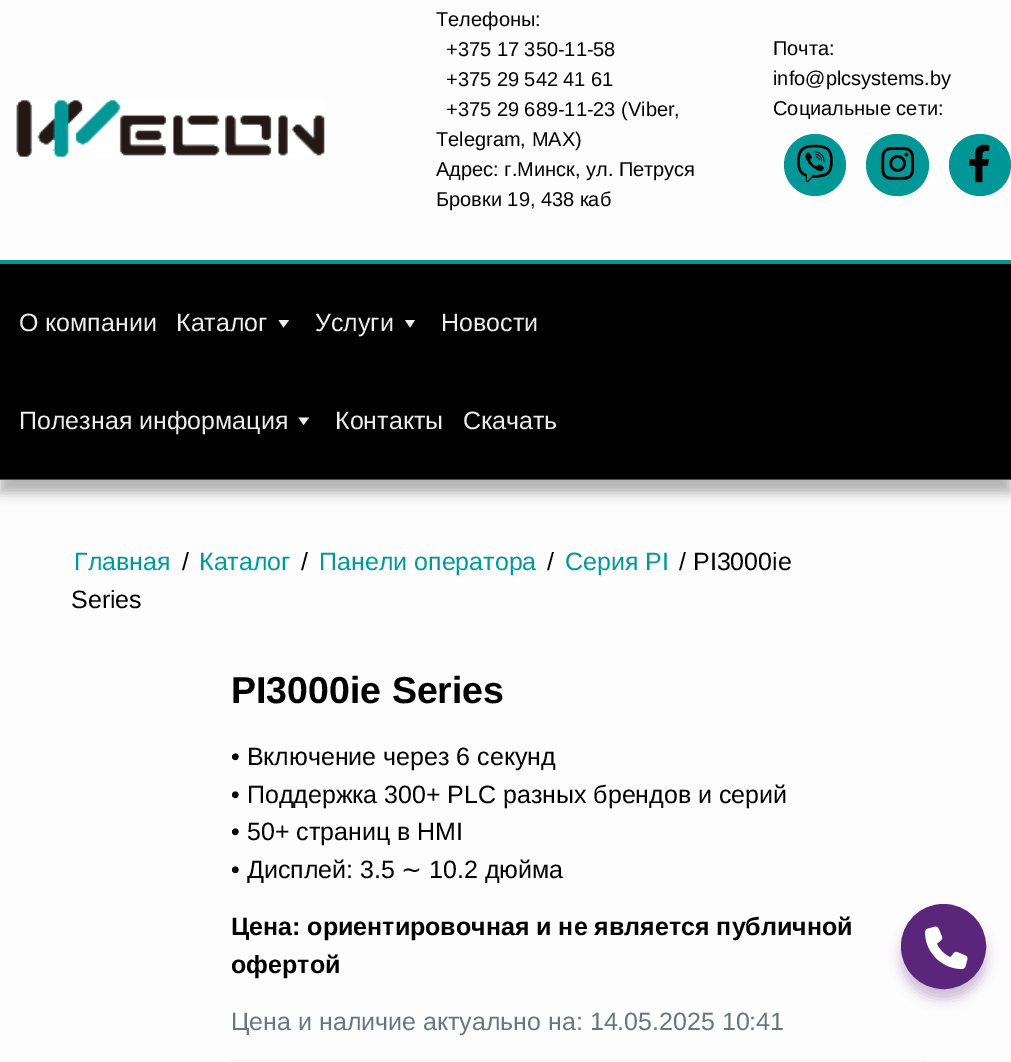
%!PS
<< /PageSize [1011 1062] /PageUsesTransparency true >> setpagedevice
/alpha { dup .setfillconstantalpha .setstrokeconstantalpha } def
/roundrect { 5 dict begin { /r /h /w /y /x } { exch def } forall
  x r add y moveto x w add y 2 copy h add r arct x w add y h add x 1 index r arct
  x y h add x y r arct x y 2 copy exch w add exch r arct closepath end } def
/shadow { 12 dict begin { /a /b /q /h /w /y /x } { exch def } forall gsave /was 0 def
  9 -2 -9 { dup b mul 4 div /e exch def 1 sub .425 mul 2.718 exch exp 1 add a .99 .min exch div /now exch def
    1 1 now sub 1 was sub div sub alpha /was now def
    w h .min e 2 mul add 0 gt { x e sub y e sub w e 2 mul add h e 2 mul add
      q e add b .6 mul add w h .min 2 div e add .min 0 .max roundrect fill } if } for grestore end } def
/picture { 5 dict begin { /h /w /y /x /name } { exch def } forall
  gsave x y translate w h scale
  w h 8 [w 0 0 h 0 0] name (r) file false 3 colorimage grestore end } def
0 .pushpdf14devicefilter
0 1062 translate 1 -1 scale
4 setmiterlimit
0.992 setgray
0 0 1011 1062 rectfill
/LiberationSans-Regular [20 0 0 -20 0 0] selectfont
0 setgray
436 26 moveto (Телефоны:) show
446 56 moveto (+375 17 350-11-58) show
446 86 moveto (+375 29 542 41 61) show
446 116 moveto (+375 29 689-11-23 \(Viber,) show
436 146 moveto (Telegram, MAX\)) show
436 176 moveto (Адрес: г.Минск, ул. Петруся) show
436 206 moveto (Бровки 19, 438 каб) show
773 55 moveto (Почта:) show
773 85 moveto (info@plcsystems.by) show
773 115 moveto (Социальные сети:) show
0.004 0.592 0.592 setrgbcolor
newpath 815 165 31 0 360 arc closepath fill
(img1.rgb) 797 144 36 39 picture
866 134 63 62 31 roundrect fill
(img2.rgb) 881 147 34 33 picture
newpath 980 165 31 0 360 arc closepath fill
(img3.rgb) 969 144 21 39 picture
(img4.rgb) 16 100 309 57 picture
0 setgray
0 273 1011 220 0 6 0.3 shadow
0.004 0.592 0.592 setrgbcolor
0 260 1011 4 rectfill
0.004 setgray
0 264 1011 215 rectfill
0.286 0.314 0.341 setrgbcolor
0 479 1011 1 rectfill
/LiberationSans-Regular [25 0 0 -25 0 0] selectfont
0.933 setgray
19 331 moveto (О компании) show
176 331 moveto (Каталог) show
newpath 289 320 moveto 283.5 327.5 lineto 278.5 320 lineto closepath fill
315 331 moveto (Услуги) show
newpath 415 320 moveto 410 327.5 lineto 405 320 lineto closepath fill
441 331 moveto (Новости) show
19 429 moveto (Полезная информация) show
newpath 309 417.5 moveto 303.5 425 lineto 298.5 417.5 lineto closepath fill
335 429 moveto (Контакты) show
463 429 moveto (Скачать) show
0 0.6 0.6 setrgbcolor
74 570 moveto (Главная) show
0 setgray
182 570 moveto (/) show
0 0.6 0.6 setrgbcolor
199 570 moveto (Каталог) show
0 setgray
301 570 moveto (/) show
0 0.6 0.6 setrgbcolor
319 570 moveto (Панели оператора) show
0 setgray
547 570 moveto (/) show
0 0.6 0.6 setrgbcolor
565 570 moveto (Серия PI) show
0 setgray
679 570 moveto (/ PI3000ie) show
71 608 moveto (Series) show
/LiberationSans-Bold [37.5 0 0 -37.5 0 0] selectfont
231 703 moveto (PI3000ie Series) show
/LiberationSans-Regular [25 0 0 -25 0 0] selectfont
231 765 moveto (• Включение через 6 секунд) show
231 803 moveto (• Поддержка 300+ PLC разных брендов и серий) show
231 840 moveto (• 50+ страниц в HMI) show
231 878 moveto (• Дисплей: 3.5) show
/DejaVuSans-Regular [25 0 0 -25 0 0] selectfont
401 878 moveto (∼) show
/LiberationSans-Regular [25 0 0 -25 0 0] selectfont
429 878 moveto (10.2 дюйма) show
/LiberationSans-Bold [25 0 0 -25 0 0] selectfont
231 935 moveto (Цена: ориентировочная и не является публичной) show
231 973 moveto (офертой) show
/LiberationSans-Regular [25 0 0 -25 0 0] selectfont
0.424 0.459 0.49 setrgbcolor
231 1030 moveto (Цена и наличие актуально на: 14.05.2025 10:41) show
0.961 0.957 0.941 setrgbcolor
231 1060 695 1 rectfill
0.349 0.149 0.486 setrgbcolor
901 914 85 85 42.5 6 0.3 shadow
newpath 943.5 946.5 41 0 360 arc closepath gsave fill grestore
3 setlinewidth
stroke
(img5.rgb) 925 926 43 44 picture
.poppdf14devicefilter showpage
